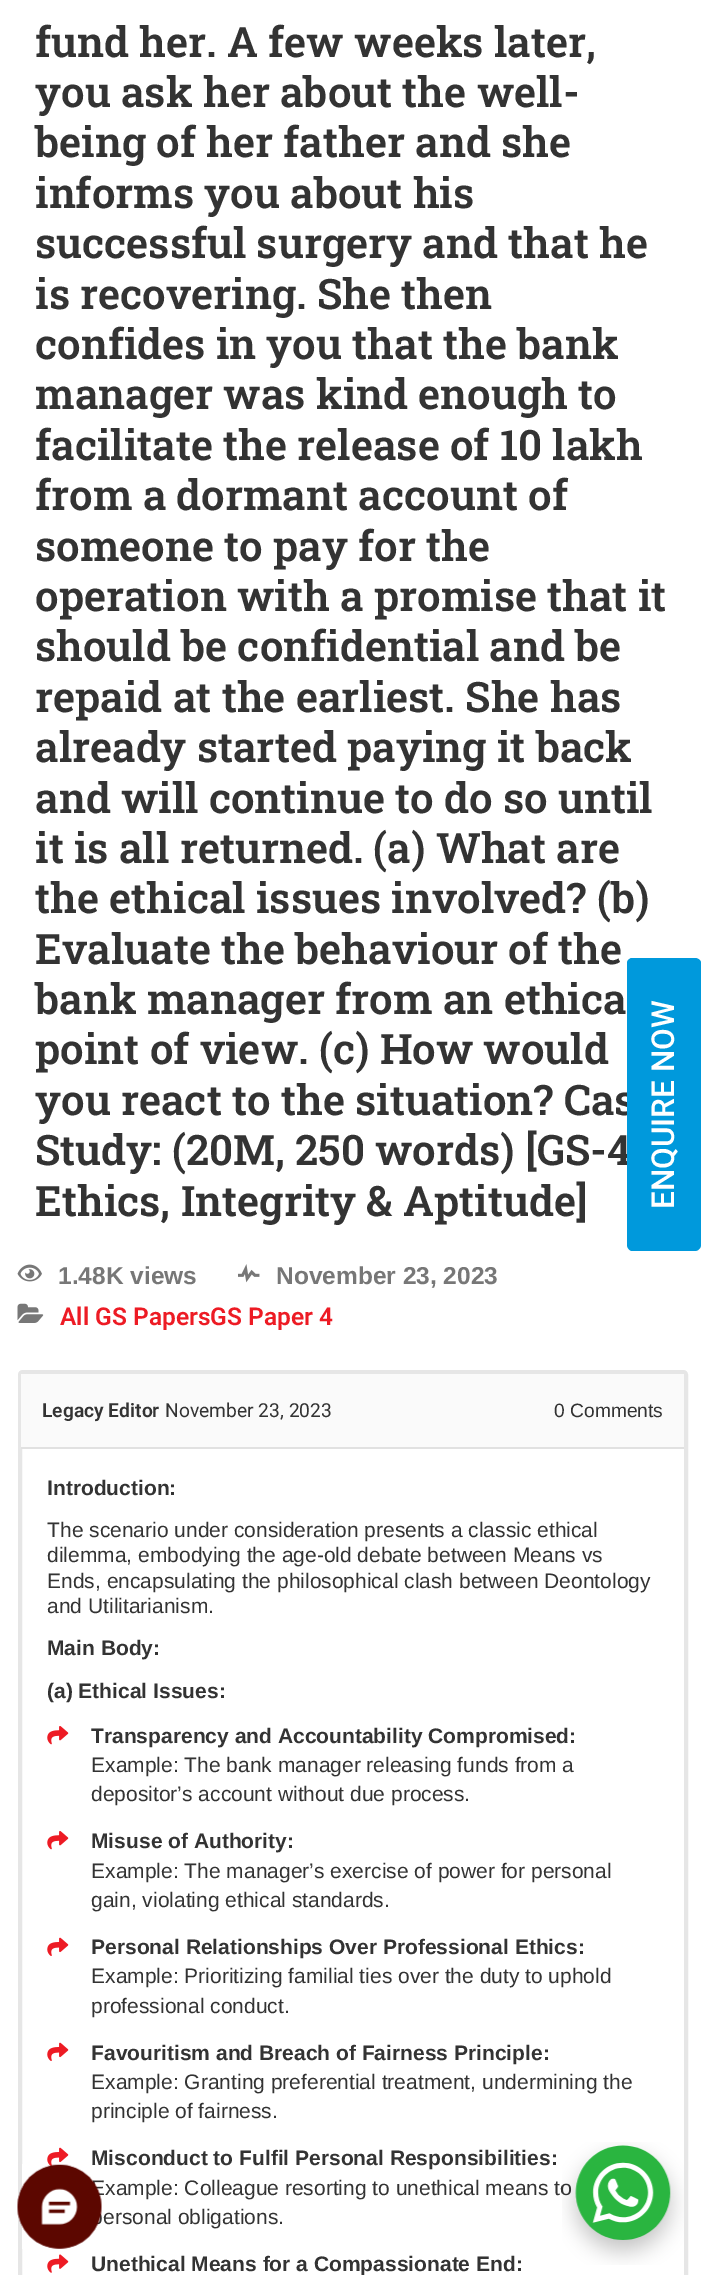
%!PS
<< /PageSize [705 2275] >> setpagedevice
/roundrect { 5 dict begin { /r /h /w /y /x } { exch def } forall
  x r add y moveto x w add y 2 copy h add r arct x w add y h add x 1 index r arct
  x y h add x y r arct x y 2 copy exch w add exch r arct closepath end } def
/picture { 5 dict begin { /h /w /y /x /name } { exch def } forall
  gsave x y translate w h scale
  w h 8 [w 0 0 h 0 0] name (r) file false 3 colorimage grestore end } def
0 2275 translate 1 -1 scale
4 setmiterlimit
1 setgray
0 0 705 2275 rectfill
/RobotoSlab-SemiBold [42 0 0 -42 0 0] selectfont
0.2 setgray
35 57 moveto (fund her. A few weeks later,) show
35 107 moveto (you ask her about the well-) show
35 157 moveto (being of her father and she) show
35 208 moveto (informs you about his) show
35 258 moveto (successful surgery and that he) show
35 309 moveto (is recovering. She then) show
35 359 moveto (confides in you that the bank) show
35 409 moveto (manager was kind enough to) show
35 460 moveto (facilitate the release of 10 lakh) show
35 510 moveto (from a dormant account of) show
35 561 moveto (someone to pay for the) show
35 611 moveto (operation with a promise that it) show
35 661 moveto (should be confidential and be) show
35 712 moveto (repaid at the earliest. She has) show
35 762 moveto (already started paying it back) show
35 813 moveto (and will continue to do so until) show
35 863 moveto (it is all returned. \(a\) What are) show
35 913 moveto (the ethical issues involved? \(b\)) show
35 964 moveto (Evaluate the behaviour of the) show
35 1014 moveto (bank manager from an ethica) show
35 1064 moveto (point of view. \(c\) How would) show
35 1115 moveto (you react to the situation? Cas) show
35 1165 moveto (Study: \(20M, 250 words\) [GS-4) show
35 1216 moveto (Ethics, Integrity & Aptitude]) show
(img1.rgb) 17 1264 25 18 picture
/LiberationSans-Bold [24.5 0 0 -24.5 0 0] selectfont
0.467 setgray
58 1284 moveto (1.48K views) show
(img2.rgb) 238 1264 22 19 picture
276 1284 moveto (November 23, 2023) show
(img3.rgb) 17 1303 27 20 picture
/Roboto-SemiBold [24.5 0 0 -24.5 0 0] selectfont
0.929 0.106 0.141 setrgbcolor
60 1325 moveto (All GS PapersGS Paper 4) show
0.902 setgray
4 setlinewidth
20 1372 666 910 3 roundrect stroke
0.98 setgray
21 1374 663 73 rectfill
0.882 setgray
21 1447 663 2 rectfill
/Roboto-SemiBold [19.25 0 0 -19.25 0 0] selectfont
0.2 setgray
42 1417 moveto (Legacy Editor) show
/Roboto-Regular [19.25 0 0 -19.25 0 0] selectfont
165 1417 moveto (November 23, 2023) show
/LiberationSans-Regular [19.25 0 0 -19.25 0 0] selectfont
554 1417 moveto (0 Comments) show
/LiberationSans-Bold [21 0 0 -21 0 0] selectfont
47 1495 moveto (Introduction:) show
/LiberationSans-Regular [21 0 0 -21 0 0] selectfont
47 1537 moveto (The scenario under consideration presents a classic ethical) show
47 1562 moveto (dilemma, embodying the age-old debate between Means vs) show
47 1588 moveto (Ends, encapsulating the philosophical clash between Deontology) show
47 1613 moveto (and Utilitarianism.) show
/LiberationSans-Bold [21 0 0 -21 0 0] selectfont
47 1655 moveto (Main Body:) show
47 1698 moveto (\(a\) Ethical Issues:) show
(img4.rgb) 47 1726 22 19 picture
91 1743 moveto (Transparency and Accountability Compromised:) show
/LiberationSans-Regular [21 0 0 -21 0 0] selectfont
91 1772 moveto (Example: The bank manager releasing funds from a) show
91 1801 moveto (depositor’s account without due process.) show
(img4.rgb) 47 1831 22 19 picture
/LiberationSans-Bold [21 0 0 -21 0 0] selectfont
91 1848 moveto (Misuse of Authority:) show
/LiberationSans-Regular [21 0 0 -21 0 0] selectfont
91 1878 moveto (Example: The manager’s exercise of power for personal) show
91 1907 moveto (gain, violating ethical standards.) show
(img5.rgb) 47 1937 22 19 picture
/LiberationSans-Bold [21 0 0 -21 0 0] selectfont
91 1954 moveto (Personal Relationships Over Professional Ethics:) show
/LiberationSans-Regular [21 0 0 -21 0 0] selectfont
91 1983 moveto (Example: Prioritizing familial ties over the duty to uphold) show
91 2013 moveto (professional conduct.) show
(img5.rgb) 47 2042 22 19 picture
/LiberationSans-Bold [21 0 0 -21 0 0] selectfont
91 2060 moveto (Favouritism and Breach of Fairness Principle:) show
/LiberationSans-Regular [21 0 0 -21 0 0] selectfont
91 2089 moveto (Example: Granting preferential treatment, undermining the) show
91 2118 moveto (principle of fairness.) show
(img5.rgb) 47 2147 22 19 picture
/LiberationSans-Bold [21 0 0 -21 0 0] selectfont
91 2165 moveto (Misconduct to Fulfil Personal Responsibilities:) show
/LiberationSans-Regular [21 0 0 -21 0 0] selectfont
91 2195 moveto (Example: Colleague resorting to unethical means to) show
103 2224 moveto (ersonal obligations.) show
(img6.rgb) 47 2254 22 19 picture
/LiberationSans-Bold [21 0 0 -21 0 0] selectfont
91 2271 moveto (Unethical Means for a Compassionate End:) show
0 0.6 0.863 setrgbcolor
newpath 627 1245 moveto 627 963 lineto 627 960 630 958 632 958 curveto 695 958 lineto 698 958 701 960 701 963 curveto 701 1245 lineto 701 1248 698 1251 695 1251 curveto 632 1251 lineto 630 1251 627 1248 627 1245 curveto closepath fill
/Roboto-Medium [31.5 0 0 -31.5 0 0] selectfont
1 setgray
gsave 674 1209 translate -90 rotate 0 0 moveto (ENQUIRE NOW) show grestore
(img7.rgb) 17 2164 85 85 picture
(img8.rgb) 562 2142 122 123 picture
showpage
